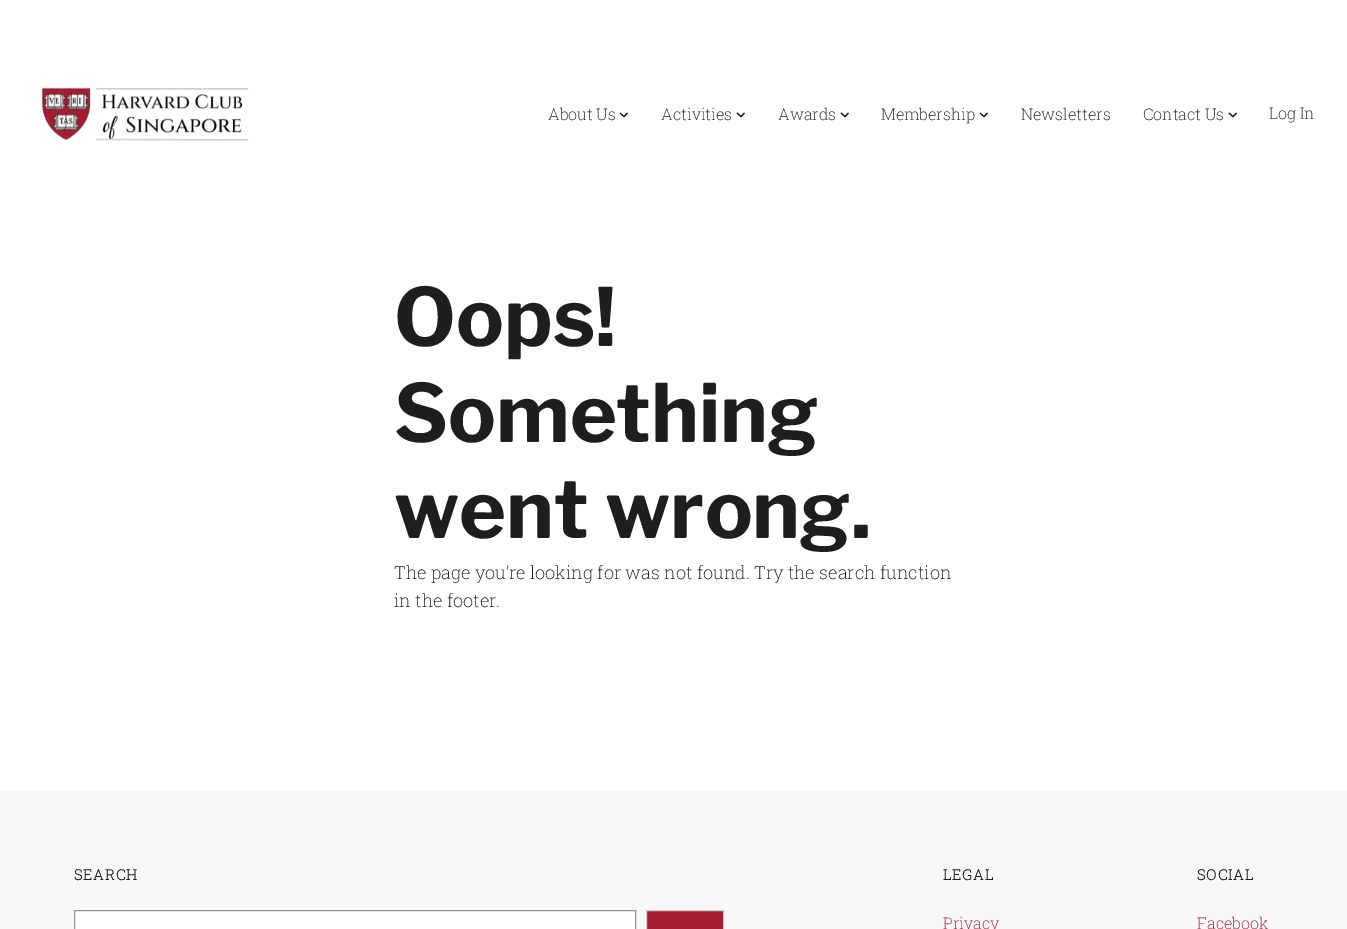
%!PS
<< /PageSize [1347 929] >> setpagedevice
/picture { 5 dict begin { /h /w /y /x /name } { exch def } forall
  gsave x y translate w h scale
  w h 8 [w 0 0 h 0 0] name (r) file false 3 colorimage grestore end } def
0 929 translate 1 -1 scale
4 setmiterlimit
1 setgray
0 0 1347 929 rectfill
(img1.rgb) 41 87 208 54 picture
/RobotoSlab-ExtraLight [16 0 0 -16 0 0] selectfont
0.118 setgray
548 120 moveto (About Us) show
1.2 setlinewidth
newpath 620 113 moveto 624 116.5 lineto 627.5 113 lineto stroke
661 120 moveto (Activities) show
newpath 737 113 moveto 741 116.5 lineto 744.5 113 lineto stroke
778 120 moveto (Awards) show
newpath 841 113 moveto 845 116.5 lineto 848.5 113 lineto stroke
881 120 moveto (Membership) show
newpath 980 113 moveto 984 116.5 lineto 987.5 113 lineto stroke
1021 120 moveto (Newsletters) show
1143 120 moveto (Contact Us) show
newpath 1229 113 moveto 1233 116.5 lineto 1236.5 113 lineto stroke
1269 119 moveto (Log In) show
/LibreFranklin-Bold [80 0 0 -80 0 0] selectfont
394 346 moveto (Oops!) show
394 442 moveto (Something) show
394 538 moveto (went wrong.) show
/RobotoSlab-ExtraLight [18 0 0 -18 0 0] selectfont
394 579 moveto (The page you’re looking for was not found. Try the search function) show
394 607 moveto (in the footer.) show
0.973 setgray
0 791 1347 138 rectfill
/RobotoSlab-Bold [14.5 0 0 -14.5 0 0] selectfont
0.118 setgray
74 880 moveto 1 0 (SEARCH) ashow
1 setgray
newpath 74.5 910.5 moveto 635.5 910.5 lineto 635.5 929.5 lineto 74.5 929.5 lineto closepath gsave fill grestore
0.58 setgray
1 setlinewidth
stroke
0.647 0.11 0.188 setrgbcolor
newpath 646.5 910.5 moveto 723.5 910.5 lineto 723.5 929.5 lineto 646.5 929.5 lineto closepath gsave fill grestore
0.8 setgray
stroke
0.118 setgray
943 880 moveto 1 0 (LEGAL) ashow
/RobotoSlab-ExtraLight [16 0 0 -16 0 0] selectfont
0.647 0.11 0.188 setrgbcolor
943 929 moveto (Privacy) show
/RobotoSlab-Bold [14.5 0 0 -14.5 0 0] selectfont
0.118 setgray
1197 880 moveto 1 0 (SOCIAL) ashow
/RobotoSlab-ExtraLight [16 0 0 -16 0 0] selectfont
0.647 0.11 0.188 setrgbcolor
1197 929 moveto (Facebook) show
showpage
